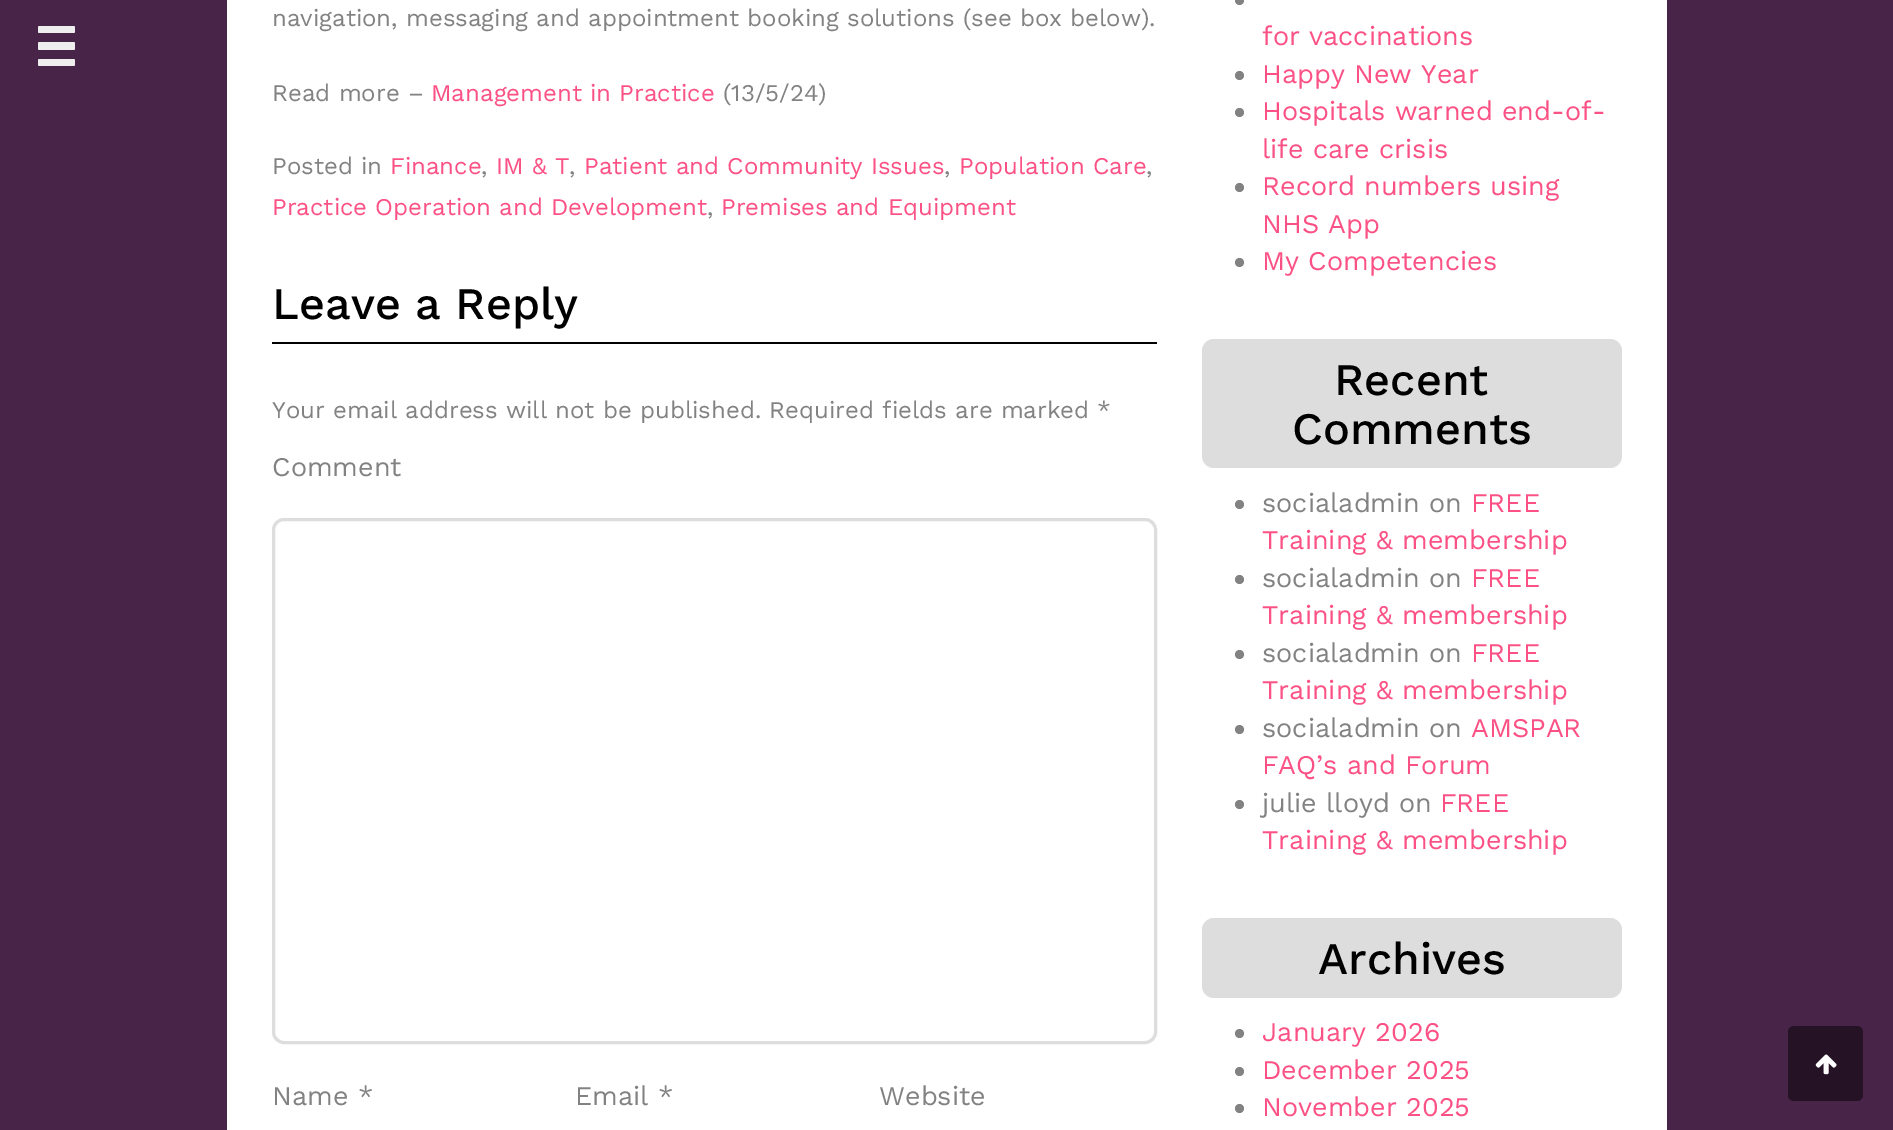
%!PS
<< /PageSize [1893 1130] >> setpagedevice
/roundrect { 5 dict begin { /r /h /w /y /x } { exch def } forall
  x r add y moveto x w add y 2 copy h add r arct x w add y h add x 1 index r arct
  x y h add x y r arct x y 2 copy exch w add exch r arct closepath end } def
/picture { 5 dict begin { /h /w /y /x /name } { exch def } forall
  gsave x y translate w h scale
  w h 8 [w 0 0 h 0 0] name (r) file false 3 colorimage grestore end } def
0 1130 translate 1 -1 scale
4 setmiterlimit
0.286 0.141 0.286 setrgbcolor
0 0 1893 1130 rectfill
0.933 setgray
38 42 37 8 1.5 roundrect fill
38 26 37 7 1.5 roundrect fill
38 59 37 7 1.5 roundrect fill
1 setgray
227 0 1440 1130 rectfill
/WorkSans-Regular [24 0 0 -24 0 0] selectfont
0.51 setgray
272 26 moveto (navigation, messaging and appointment booking solutions \(see box below\).) show
272 101 moveto (Read more –) show
0.988 0.318 0.522 setrgbcolor
431 101 moveto (Management in Practice) show
0.51 setgray
723 101 moveto (\(13/5/24\)) show
272 174 moveto (Posted in) show
0.988 0.318 0.522 setrgbcolor
390 174 moveto (Finance) show
0.51 setgray
481 174 moveto (,) show
0.988 0.318 0.522 setrgbcolor
496 174 moveto (IM & T) show
0.51 setgray
569 174 moveto (,) show
0.988 0.318 0.522 setrgbcolor
584 174 moveto (Patient and Community Issues) show
0.51 setgray
944 174 moveto (,) show
0.988 0.318 0.522 setrgbcolor
959 174 moveto (Population Care) show
0.51 setgray
1146 174 moveto (,) show
0.988 0.318 0.522 setrgbcolor
272 215 moveto (Practice Operation and Development) show
0.51 setgray
707 215 moveto (,) show
0.988 0.318 0.522 setrgbcolor
721 215 moveto (Premises and Equipment) show
0 setgray
272 342 885 2 rectfill
/WorkSans-Medium [45 0 0 -45 0 0] selectfont
272 319 moveto (Leave a Reply) show
/WorkSans-Regular [24 0 0 -24 0 0] selectfont
0.51 setgray
272 418 moveto (Your email address will not be published. Required fields are marked *) show
/WorkSans-Regular [27 0 0 -27 0 0] selectfont
272 476 moveto (Comment) show
0.867 setgray
3 setlinewidth
273.5 519.5 882 523 10.5 roundrect stroke
0.51 setgray
272 1105 moveto (Name *) show
575 1105 moveto (Email *) show
879 1105 moveto (Website) show
newpath 1239.5 0.5 4.5 0 360 arc closepath fill
0.988 0.318 0.522 setrgbcolor
1262 45 moveto (for vaccinations) show
0.51 setgray
newpath 1239.5 75.5 4.5 0 360 arc closepath fill
0.988 0.318 0.522 setrgbcolor
1262 83 moveto (Happy New Year) show
0.51 setgray
newpath 1239.5 112.5 4.5 0 360 arc closepath fill
0.988 0.318 0.522 setrgbcolor
1262 120 moveto (Hospitals warned end-of-) show
1262 158 moveto (life care crisis) show
0.51 setgray
newpath 1239.5 187.5 4.5 0 360 arc closepath fill
0.988 0.318 0.522 setrgbcolor
1262 195 moveto (Record numbers using) show
1262 233 moveto (NHS App) show
0.51 setgray
newpath 1239.5 262.5 4.5 0 360 arc closepath fill
0.988 0.318 0.522 setrgbcolor
1262 270 moveto (My Competencies) show
0.867 setgray
1202 339 420 129 12 roundrect fill
/WorkSans-Medium [45 0 0 -45 0 0] selectfont
0 setgray
1334 395 moveto (Recent) show
1292 444 moveto (Comments) show
0.51 setgray
newpath 1239.5 504.5 4.5 0 360 arc closepath fill
/WorkSans-Regular [27 0 0 -27 0 0] selectfont
1262 512 moveto (socialadmin on) show
0.988 0.318 0.522 setrgbcolor
1471 512 moveto (FREE) show
1262 549 moveto (Training & membership) show
0.51 setgray
newpath 1239.5 579.5 4.5 0 360 arc closepath fill
1262 587 moveto (socialadmin on) show
0.988 0.318 0.522 setrgbcolor
1471 587 moveto (FREE) show
1262 624 moveto (Training & membership) show
0.51 setgray
newpath 1239.5 654.5 4.5 0 360 arc closepath fill
1262 662 moveto (socialadmin on) show
0.988 0.318 0.522 setrgbcolor
1471 662 moveto (FREE) show
1262 699 moveto (Training & membership) show
0.51 setgray
newpath 1239.5 729.5 4.5 0 360 arc closepath fill
1262 737 moveto (socialadmin on) show
0.988 0.318 0.522 setrgbcolor
1471 737 moveto (AMSPAR) show
1262 774 moveto (FAQ’s and Forum) show
0.51 setgray
newpath 1239.5 804.5 4.5 0 360 arc closepath fill
1262 812 moveto (julie lloyd on) show
0.988 0.318 0.522 setrgbcolor
1440 812 moveto (FREE) show
1262 849 moveto (Training & membership) show
0.867 setgray
1202 918 420 80 12 roundrect fill
/WorkSans-Medium [45 0 0 -45 0 0] selectfont
0 setgray
1318 974 moveto (Archives) show
0.51 setgray
newpath 1239.5 1033.5 4.5 0 360 arc closepath fill
/WorkSans-Regular [27 0 0 -27 0 0] selectfont
0.988 0.318 0.522 setrgbcolor
1262 1041 moveto (January 2026) show
0.51 setgray
newpath 1239.5 1071.5 4.5 0 360 arc closepath fill
0.988 0.318 0.522 setrgbcolor
1262 1079 moveto (December 2025) show
0.51 setgray
newpath 1239.5 1108.5 4.5 0 360 arc closepath fill
0.988 0.318 0.522 setrgbcolor
1262 1116 moveto (November 2025) show
0.145 0.071 0.145 setrgbcolor
1788 1026 75 75 6 roundrect fill
(img1.rgb) 1815 1054 22 21 picture
showpage
